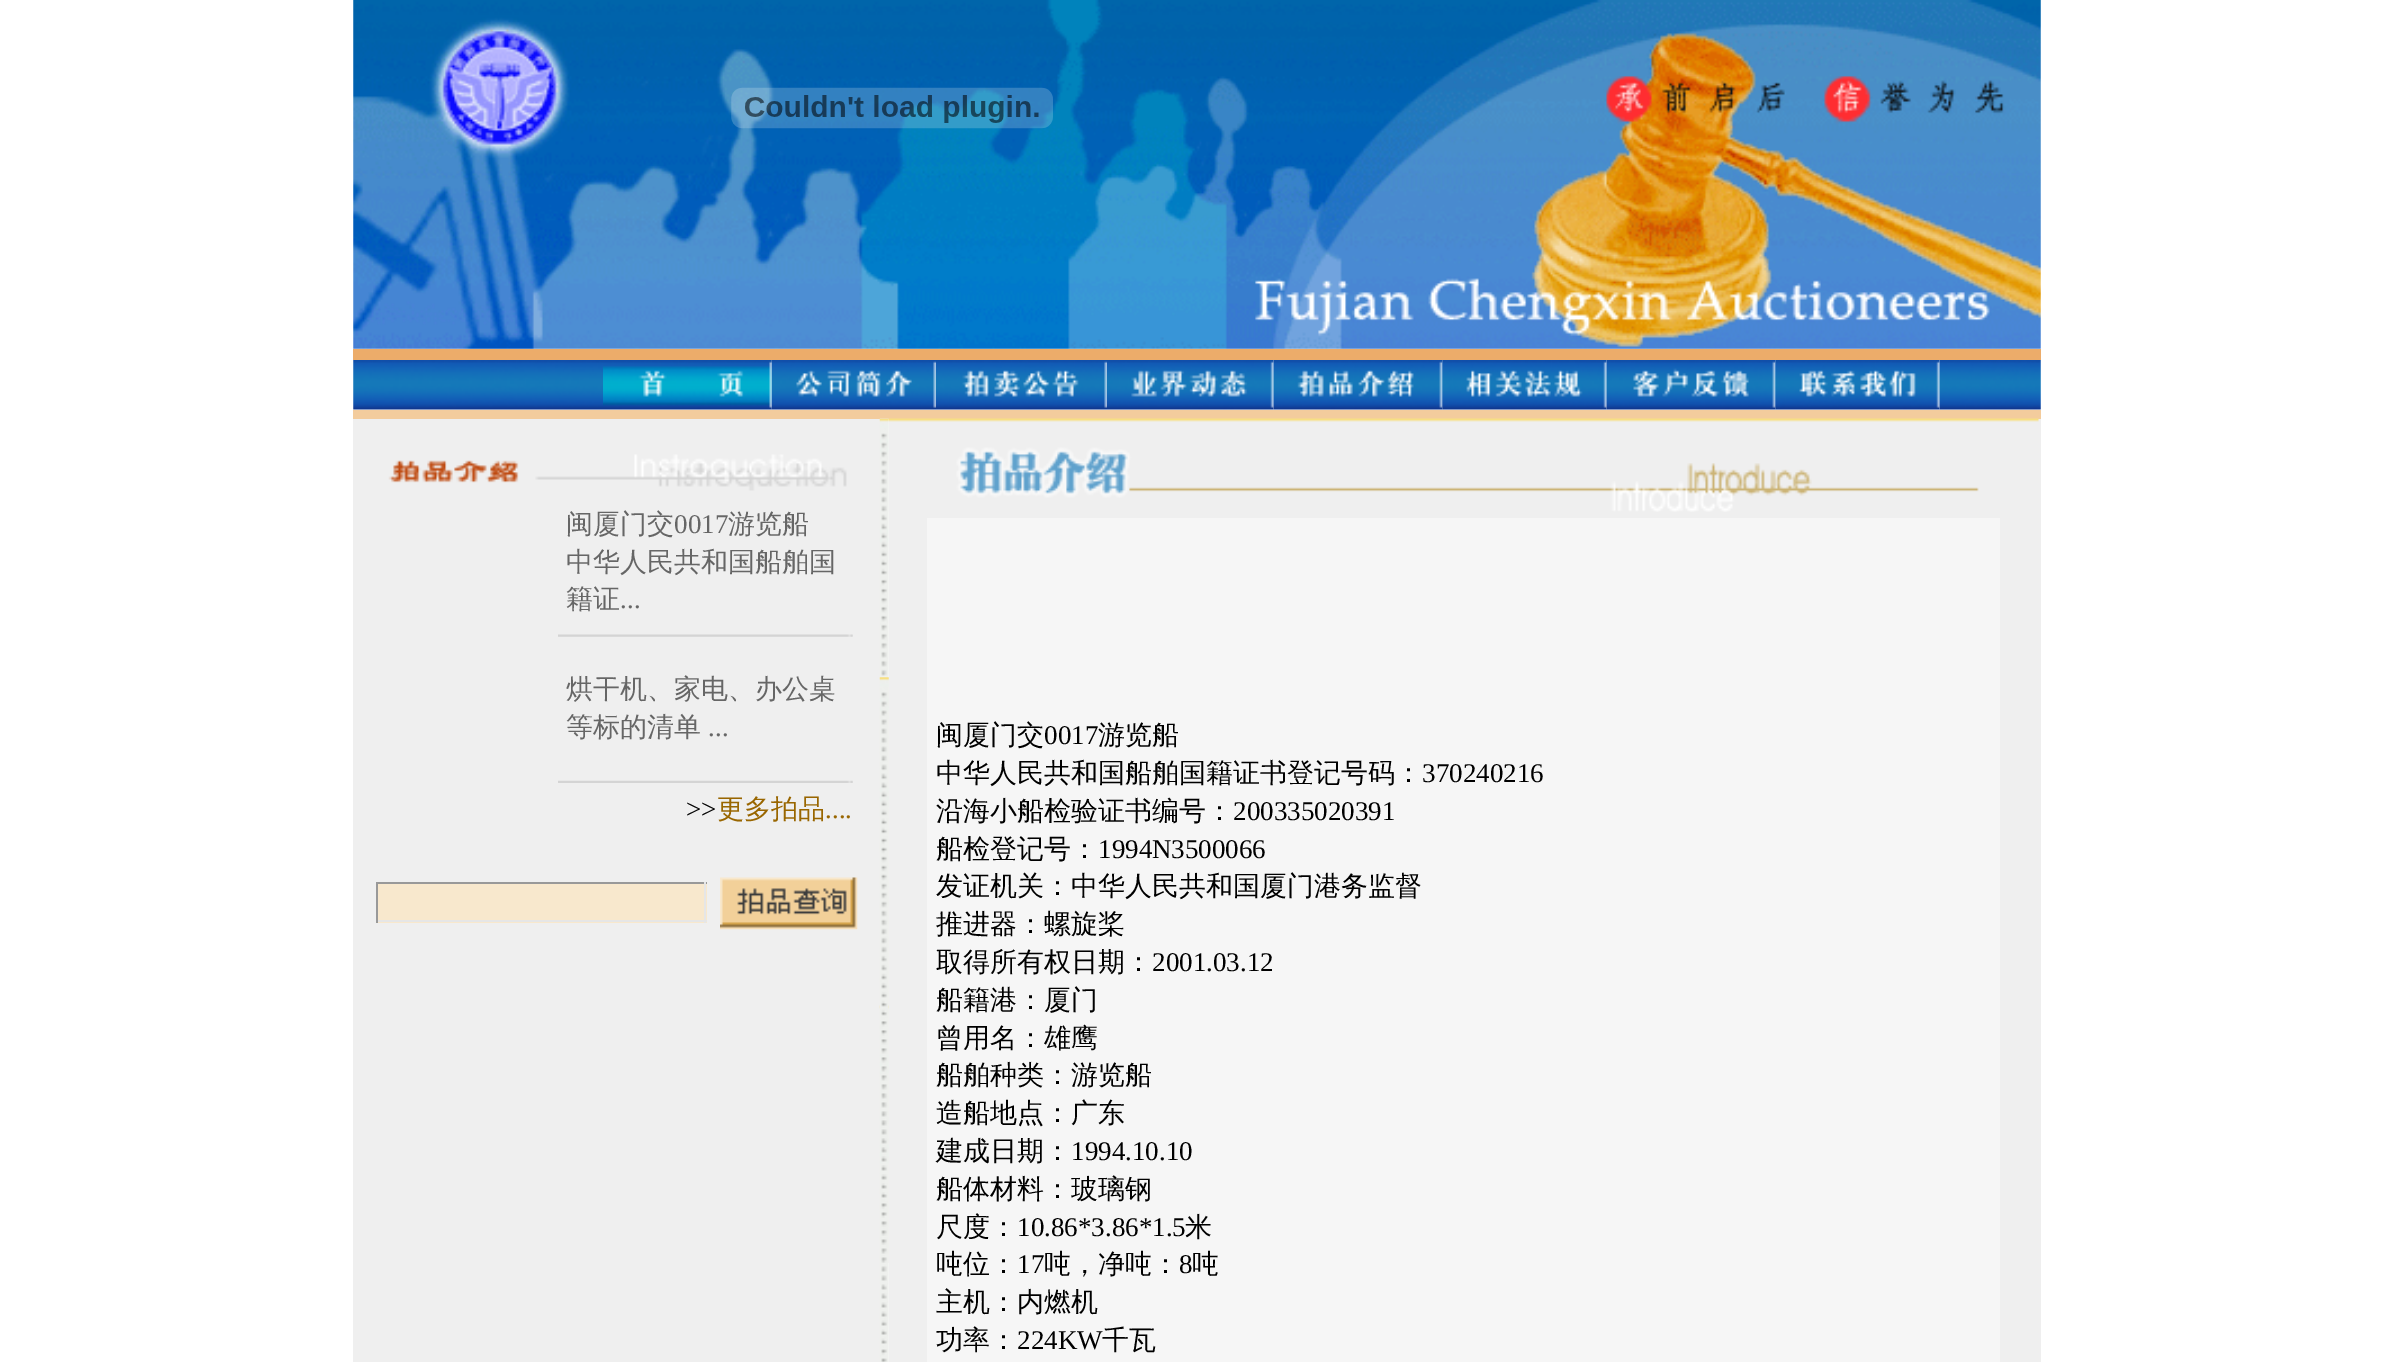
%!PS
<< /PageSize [2391 1362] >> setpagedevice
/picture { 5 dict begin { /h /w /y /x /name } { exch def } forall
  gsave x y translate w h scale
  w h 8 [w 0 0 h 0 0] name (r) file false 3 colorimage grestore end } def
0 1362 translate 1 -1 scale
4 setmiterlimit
1 setgray
0 0 2391 1362 rectfill
(img1.rgb) 353 0 1688 349 picture
(img2.rgb) 731 87 322 42 picture
0.925 0.675 0.416 setrgbcolor
353 349 1688 11 rectfill
(img3.rgb) 353 360 250 50 picture
(img4.rgb) 603 360 169 50 picture
(img5.rgb) 771 360 165 50 picture
(img6.rgb) 936 360 171 50 picture
(img7.rgb) 1107 360 167 50 picture
(img8.rgb) 1273 360 170 50 picture
(img9.rgb) 1442 360 165 50 picture
(img10.rgb) 1606 360 170 50 picture
(img11.rgb) 1775 360 165 50 picture
(img12.rgb) 1939 360 102 50 picture
0.953 0.8 0.616 setrgbcolor
353 410 1688 9 rectfill
0.937 setgray
353 419 527 943 rectfill
(img13.rgb) 388 454 459 37 picture
/WenQuanYiZenHei-Medium [27 0 0 -27 0 0] selectfont
0.4 setgray
566 533 moveto (闽厦门交) show
/LiberationSerif-Regular [27 0 0 -27 0 0] selectfont
674 533 moveto (0017) show
/WenQuanYiZenHei-Medium [27 0 0 -27 0 0] selectfont
728 533 moveto (游览船) show
566 571 moveto (中华人民共和国船舶国) show
566 608 moveto (籍证) show
/LiberationSerif-Regular [27 0 0 -27 0 0] selectfont
620 608 moveto (...) show
(img14.rgb) 558 634 295 3 picture
/WenQuanYiZenHei-Medium [27 0 0 -27 0 0] selectfont
566 698 moveto (烘干机、家电、办公桌) show
566 736 moveto (等标的清单) show
/LiberationSerif-Regular [27 0 0 -27 0 0] selectfont
708 736 moveto (...) show
(img15.rgb) 558 780 295 3 picture
0 setgray
686 818 moveto (>>) show
/WenQuanYiZenHei-Medium [27 0 0 -27 0 0] selectfont
0.6 0.4 0 setrgbcolor
717 818 moveto (更多拍品) show
/LiberationSerif-Regular [27 0 0 -27 0 0] selectfont
825 818 moveto (....) show
0.973 0.91 0.804 setrgbcolor
378 884 329 39 rectfill
0.6 setgray
376 882 331 2 rectfill
0.902 setgray
704 882 2 41 rectfill
376 920 331 2 rectfill
0.6 setgray
376 882 2 41 rectfill
(img16.rgb) 720 877 138 53 picture
(img17.rgb) 879 418 10 944 picture
(img18.rgb) 879 677 10 586 picture
0.937 setgray
889 419 1152 943 rectfill
(img19.rgb) 888 418 1151 94 picture
0.965 setgray
927 518 1073 844 rectfill
/WenQuanYiZenHei-Medium [27 0 0 -27 0 0] selectfont
0 setgray
936 744 moveto (闽厦门交) show
/LiberationSerif-Regular [27 0 0 -27 0 0] selectfont
1044 744 moveto (0017) show
/WenQuanYiZenHei-Medium [27 0 0 -27 0 0] selectfont
1098 744 moveto (游览船) show
936 782 moveto (中华人民共和国船舶国籍证书登记号码：) show
/LiberationSerif-Regular [27 0 0 -27 0 0] selectfont
1422 782 moveto (370240216) show
/WenQuanYiZenHei-Medium [27 0 0 -27 0 0] selectfont
936 820 moveto (沿海小船检验证书编号：) show
/LiberationSerif-Regular [27 0 0 -27 0 0] selectfont
1233 820 moveto (200335020391) show
/WenQuanYiZenHei-Medium [27 0 0 -27 0 0] selectfont
936 858 moveto (船检登记号：) show
/LiberationSerif-Regular [27 0 0 -27 0 0] selectfont
1098 858 moveto (1994N3500066) show
/WenQuanYiZenHei-Medium [27 0 0 -27 0 0] selectfont
936 895 moveto (发证机关：中华人民共和国厦门港务监督) show
936 933 moveto (推进器：螺旋桨) show
936 971 moveto (取得所有权日期：) show
/LiberationSerif-Regular [27 0 0 -27 0 0] selectfont
1152 971 moveto (2001.03.12) show
/WenQuanYiZenHei-Medium [27 0 0 -27 0 0] selectfont
936 1009 moveto (船籍港：厦门) show
936 1047 moveto (曾用名：雄鹰) show
936 1084 moveto (船舶种类：游览船) show
936 1122 moveto (造船地点：广东) show
936 1160 moveto (建成日期：) show
/LiberationSerif-Regular [27 0 0 -27 0 0] selectfont
1071 1160 moveto (1994.10.10) show
/WenQuanYiZenHei-Medium [27 0 0 -27 0 0] selectfont
936 1198 moveto (船体材料：玻璃钢) show
936 1236 moveto (尺度：) show
/LiberationSerif-Regular [27 0 0 -27 0 0] selectfont
1017 1236 moveto (10.86*3.86*1.5) show
/WenQuanYiZenHei-Medium [27 0 0 -27 0 0] selectfont
1185 1236 moveto (米) show
936 1273 moveto (吨位：) show
/LiberationSerif-Regular [27 0 0 -27 0 0] selectfont
1017 1273 moveto (17) show
/WenQuanYiZenHei-Medium [27 0 0 -27 0 0] selectfont
1044 1273 moveto (吨，净吨：) show
/LiberationSerif-Regular [27 0 0 -27 0 0] selectfont
1179 1273 moveto (8) show
/WenQuanYiZenHei-Medium [27 0 0 -27 0 0] selectfont
1192 1273 moveto (吨) show
936 1311 moveto (主机：内燃机) show
936 1349 moveto (功率：) show
/LiberationSerif-Regular [27 0 0 -27 0 0] selectfont
1017 1349 moveto (224KW) show
/WenQuanYiZenHei-Medium [27 0 0 -27 0 0] selectfont
1102 1349 moveto (千瓦) show
showpage
